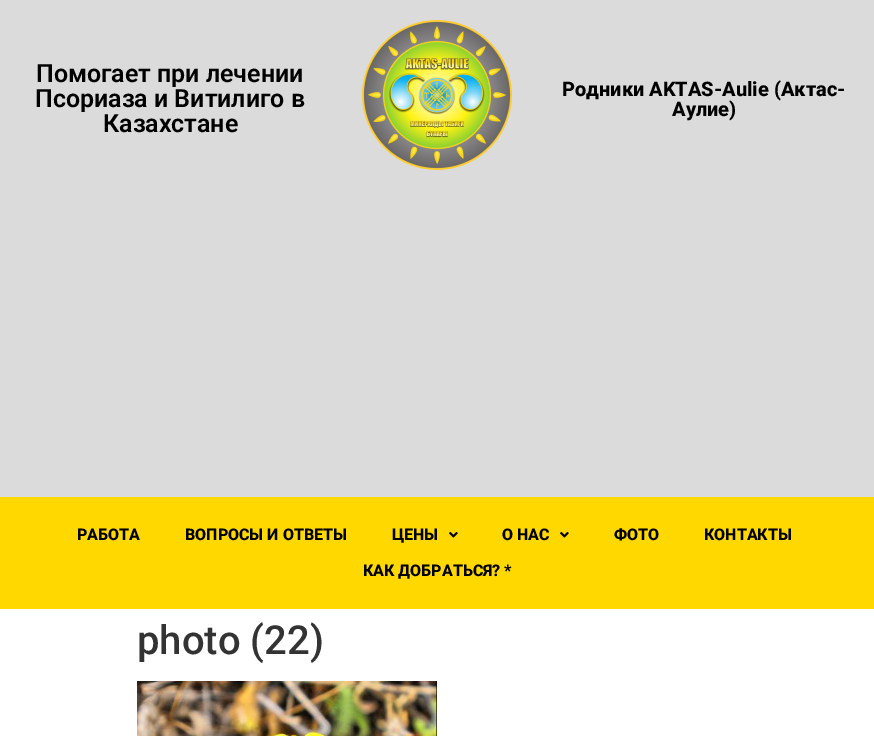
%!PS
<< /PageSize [874 736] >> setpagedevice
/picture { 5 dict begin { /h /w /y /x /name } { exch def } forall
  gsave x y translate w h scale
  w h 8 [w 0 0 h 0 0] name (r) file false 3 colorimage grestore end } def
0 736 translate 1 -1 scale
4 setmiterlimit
1 setgray
0 0 874 736 rectfill
0.859 setgray
0 0 874 497 rectfill
/Roboto-SemiBold [25 0 0 -25 0 0] selectfont
0 setgray
36 82 moveto (Помогает при лечении) show
35 107 moveto (Псориаза и Витилиго в) show
103 132 moveto (Казахстане) show
(img1.rgb) 362 20 150 150 picture
/Roboto-ExtraBold [20 0 0 -20 0 0] selectfont
562 96 moveto (Родники AKTAS-Aulie \(Актас-) show
672 116 moveto (Аулие\)) show
1 0.847 0 setrgbcolor
0 497 874 112 rectfill
/Roboto-ExtraBold [16 0 0 -16 0 0] selectfont
0 setgray
77 540 moveto (РАБОТА) show
185 540 moveto (ВОПРОСЫ И ОТВЕТЫ) show
392 540 moveto (ЦЕНЫ) show
(img2.rgb) 449 532 9 6 picture
502 540 moveto (О НАС) show
(img2.rgb) 560 532 9 6 picture
614 540 moveto (ФОТО) show
704 540 moveto (КОНТАКТЫ) show
363 576 moveto (КАК ДОБРАТЬСЯ? *) show
/Roboto-Medium [40 0 0 -40 0 0] selectfont
0.2 setgray
137 654 moveto (photo \(22\)) show
(img3.rgb) 137 681 300 55 picture
showpage
